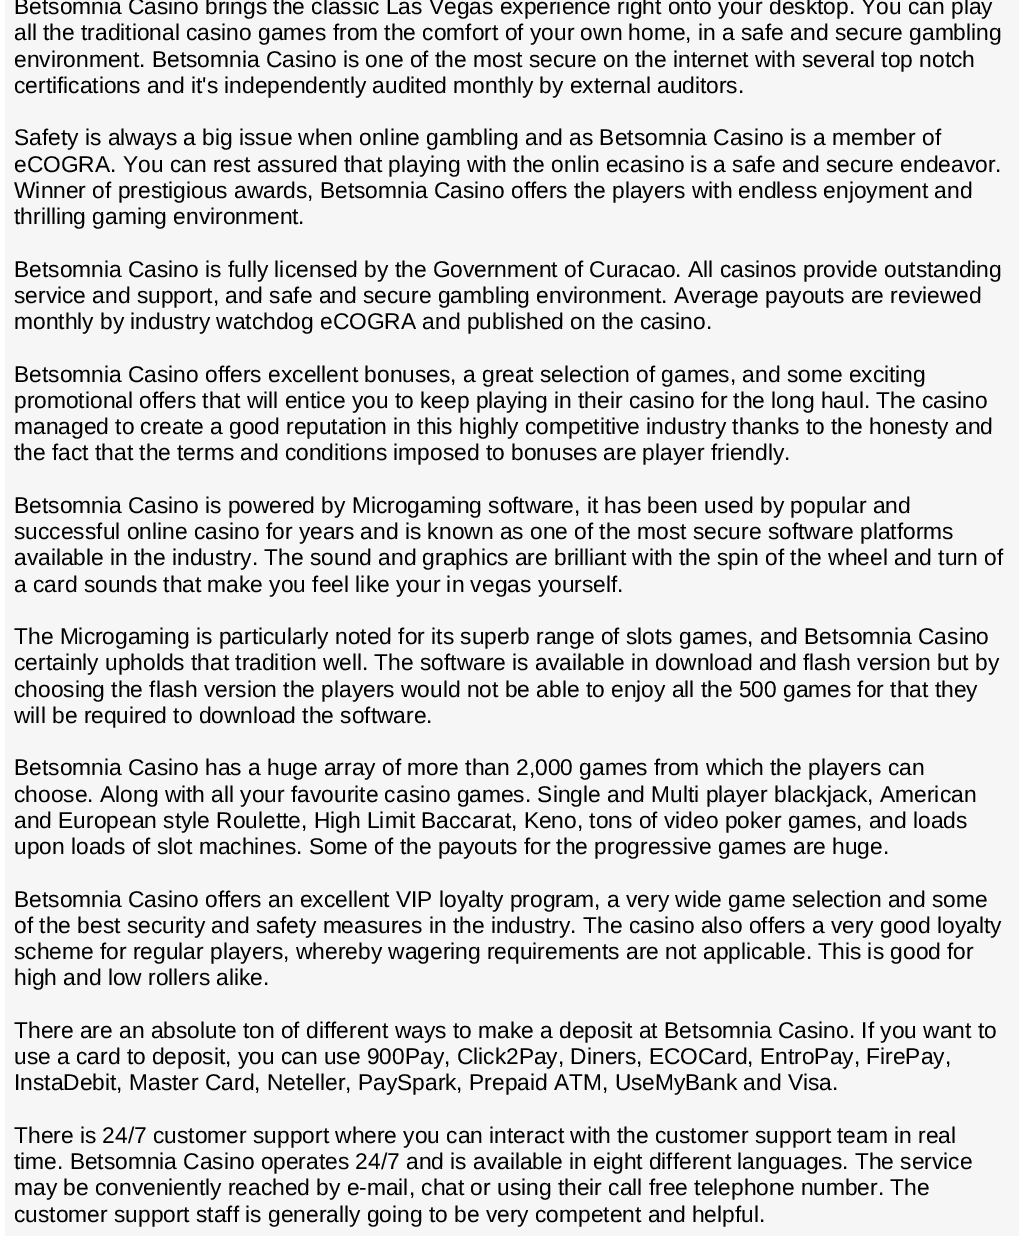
%!PS
<< /PageSize [1023 1236] >> setpagedevice
0 1236 translate 1 -1 scale
4 setmiterlimit
1 setgray
0 0 1023 1236 rectfill
0.965 setgray
5 0 1014 1236 rectfill
/LiberationSans-Regular [22.75 0 0 -22.75 0 0] selectfont
0 setgray
14 14 moveto (Betsomnia Casino brings the classic Las Vegas experience right onto your desktop. You can play) show
14 40 moveto (all the traditional casino games from the comfort of your own home, in a safe and secure gambling) show
14 67 moveto (environment. Betsomnia Casino is one of the most secure on the internet with several top notch) show
14 93 moveto (certifications and it's independently audited monthly by external auditors.) show
14 145 moveto (Safety is always a big issue when online gambling and as Betsomnia Casino is a member of) show
14 172 moveto (eCOGRA. You can rest assured that playing with the onlin ecasino is a safe and secure endeavor.) show
14 198 moveto (Winner of prestigious awards, Betsomnia Casino offers the players with endless enjoyment and) show
14 224 moveto (thrilling gaming environment.) show
14 277 moveto (Betsomnia Casino is fully licensed by the Government of Curacao. All casinos provide outstanding) show
14 303 moveto (service and support, and safe and secure gambling environment. Average payouts are reviewed) show
14 329 moveto (monthly by industry watchdog eCOGRA and published on the casino.) show
14 382 moveto (Betsomnia Casino offers excellent bonuses, a great selection of games, and some exciting) show
14 408 moveto (promotional offers that will entice you to keep playing in their casino for the long haul. The casino) show
14 434 moveto (managed to create a good reputation in this highly competitive industry thanks to the honesty and) show
14 460 moveto (the fact that the terms and conditions imposed to bonuses are player friendly.) show
14 513 moveto (Betsomnia Casino is powered by Microgaming software, it has been used by popular and) show
14 539 moveto (successful online casino for years and is known as one of the most secure software platforms) show
14 565 moveto (available in the industry. The sound and graphics are brilliant with the spin of the wheel and turn of) show
14 592 moveto (a card sounds that make you feel like your in vegas yourself.) show
14 644 moveto (The Microgaming is particularly noted for its superb range of slots games, and Betsomnia Casino) show
14 670 moveto (certainly upholds that tradition well. The software is available in download and flash version but by) show
14 697 moveto (choosing the flash version the players would not be able to enjoy all the 500 games for that they) show
14 723 moveto (will be required to download the software.) show
14 775 moveto (Betsomnia Casino has a huge array of more than 2,000 games from which the players can) show
14 802 moveto (choose. Along with all your favourite casino games. Single and Multi player blackjack, American) show
14 828 moveto (and European style Roulette, High Limit Baccarat, Keno, tons of video poker games, and loads) show
14 854 moveto (upon loads of slot machines. Some of the payouts for the progressive games are huge.) show
14 907 moveto (Betsomnia Casino offers an excellent VIP loyalty program, a very wide game selection and some) show
14 933 moveto (of the best security and safety measures in the industry. The casino also offers a very good loyalty) show
14 959 moveto (scheme for regular players, whereby wagering requirements are not applicable. This is good for) show
14 985 moveto (high and low rollers alike.) show
14 1038 moveto (There are an absolute ton of different ways to make a deposit at Betsomnia Casino. If you want to) show
14 1064 moveto (use a card to deposit, you can use 900Pay, Click2Pay, Diners, ECOCard, EntroPay, FirePay,) show
14 1090 moveto (InstaDebit, Master Card, Neteller, PaySpark, Prepaid ATM, UseMyBank and Visa.) show
14 1143 moveto (There is 24/7 customer support where you can interact with the customer support team in real) show
14 1169 moveto (time. Betsomnia Casino operates 24/7 and is available in eight different languages. The service) show
14 1195 moveto (may be conveniently reached by e-mail, chat or using their call free telephone number. The) show
14 1222 moveto (customer support staff is generally going to be very competent and helpful.) show
showpage
